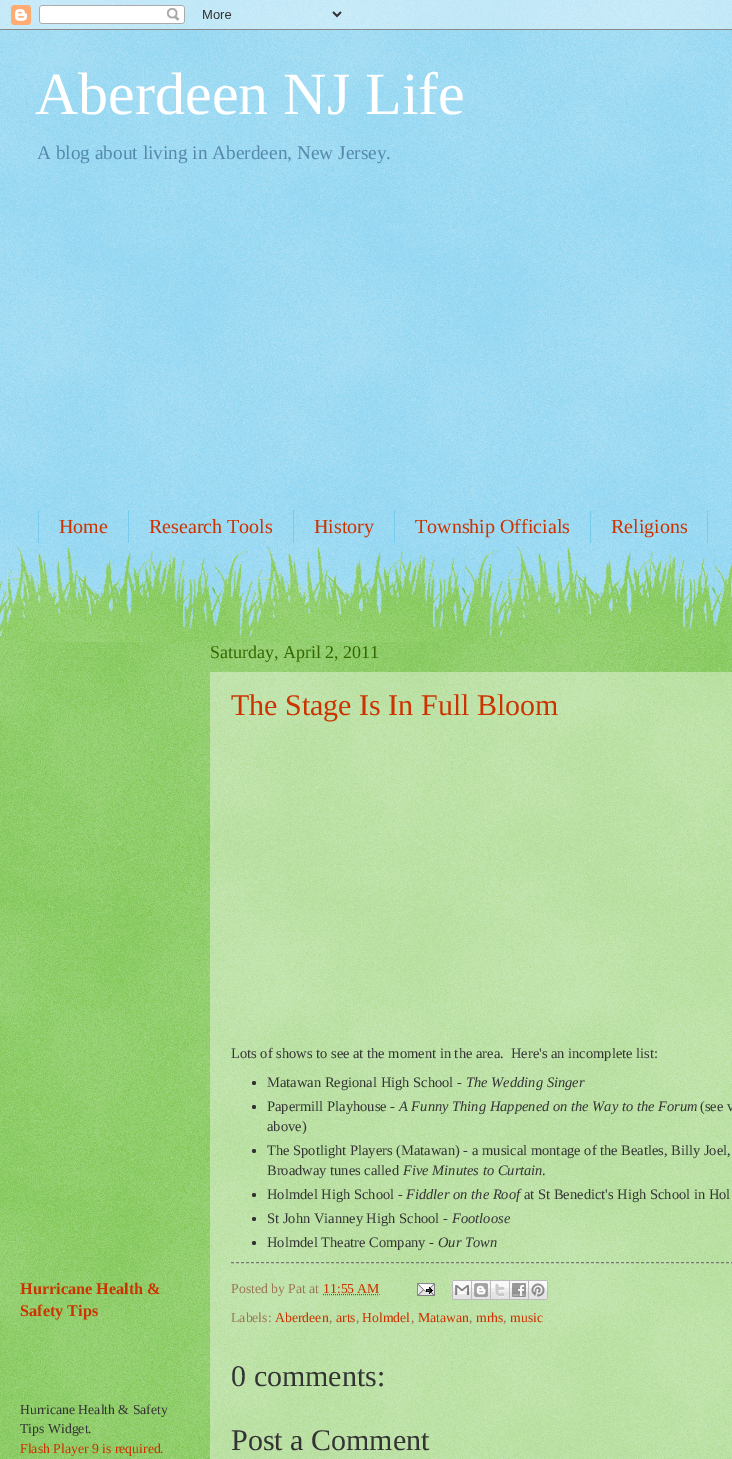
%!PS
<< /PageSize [732 1459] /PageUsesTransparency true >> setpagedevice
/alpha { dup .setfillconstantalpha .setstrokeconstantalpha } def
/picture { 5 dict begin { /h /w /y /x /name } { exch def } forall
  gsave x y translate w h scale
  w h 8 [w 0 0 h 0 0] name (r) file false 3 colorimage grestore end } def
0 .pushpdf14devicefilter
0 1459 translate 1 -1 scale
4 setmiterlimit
0.467 0.8 0.933 setrgbcolor
0 0 732 1459 rectfill
(img1.rgb) 0 0 732 637 picture
(img2.rgb) 0 0 732 30 picture
/LiberationSerif-Regular [60 0 0 -60 0 0] selectfont
1 setgray
35 114 moveto (Aberdeen NJ Life) show
/LiberationSerif-Regular [19.3 0 0 -19.3 0 0] selectfont
0.333 0.533 0.667 setrgbcolor
37 159 moveto (A blog about living in Aberdeen, New Jersey.) show
0.467 0.8 0.933 setrgbcolor
128 510 1 33 rectfill
38 510 1 33 rectfill
/LiberationSerif-Regular [20 0 0 -20 0 0] selectfont
0.8 0.2 0 setrgbcolor
59 533 moveto (Home) show
0.467 0.8 0.933 setrgbcolor
293 510 1 33 rectfill
0.8 0.2 0 setrgbcolor
149 533 moveto (Research Tools) show
0.467 0.8 0.933 setrgbcolor
394 510 1 33 rectfill
0.8 0.2 0 setrgbcolor
314 533 moveto (History) show
0.467 0.8 0.933 setrgbcolor
590 510 1 33 rectfill
0.8 0.2 0 setrgbcolor
415 533 moveto (Township Officials) show
0.467 0.8 0.933 setrgbcolor
707 510 1 33 rectfill
0.8 0.2 0 setrgbcolor
611 533 moveto (Religions) show
0.4 0.733 0.2 setrgbcolor
0 642 732 817 rectfill
(img3.rgb) 0 642 732 817 picture
(img4.rgb) 0 546 732 96 picture
/LiberationSerif-Bold [16.25 0 0 -16.25 0 0] selectfont
0.8 0.2 0 setrgbcolor
20 1294 moveto (Hurricane Health &) show
20 1316 moveto (Safety Tips) show
/LiberationSerif-Regular [13.75 0 0 -13.75 0 0] selectfont
0.2 setgray
20 1414 moveto (Hurricane Health & Safety) show
20 1433 moveto (Tips Widget.) show
0.8 0.2 0 setrgbcolor
20 1453 moveto (Flash Player 9 is required.) show
/LiberationSerif-Regular [18 0 0 -18 0 0] selectfont
0.2 0.4 0 setrgbcolor
210 658 moveto (Saturday, April 2, 2011) show
0.4 alpha
1 setgray
210 672 522 787 rectfill
/LiberationSerif-Regular [30 0 0 -30 0 0] selectfont
1 alpha
0.8 0.2 0 setrgbcolor
231 715 moveto (The Stage Is In Full Bloom) show
/LiberationSerif-Regular [14.5 0 0 -14.5 0 0] selectfont
0.2 setgray
231 1058 moveto (Lots of shows to see at the moment in the area.  Here's an incomplete list:) show
newpath 254 1083 2 0 360 arc closepath fill
267 1087 moveto (Matawan Regional High School -) show
/LiberationSerif-Italic [14.5 0 0 -14.5 0 0] selectfont
466 1087 moveto (The Wedding Singer) show
newpath 254 1107 2 0 360 arc closepath fill
/LiberationSerif-Regular [14.5 0 0 -14.5 0 0] selectfont
267 1111 moveto (Papermill Playhouse -) show
/LiberationSerif-Italic [14.5 0 0 -14.5 0 0] selectfont
399 1111 moveto (A Funny Thing Happened on the Way to the Forum) show
/LiberationSerif-Regular [14.5 0 0 -14.5 0 0] selectfont
700 1111 moveto (\(see v) show
267 1131 moveto (above\)) show
newpath 254 1151 2 0 360 arc closepath fill
267 1155 moveto (The Spotlight Players \(Matawan\) - a musical montage of the Beatles, Billy Joel,) show
267 1175 moveto (Broadway tunes called) show
/LiberationSerif-Italic [14.5 0 0 -14.5 0 0] selectfont
403 1175 moveto (Five Minutes to Curtain) show
/LiberationSerif-Regular [14.5 0 0 -14.5 0 0] selectfont
542 1175 moveto (.) show
newpath 254 1195 2 0 360 arc closepath fill
267 1199 moveto (Holmdel High School -) show
/LiberationSerif-Italic [14.5 0 0 -14.5 0 0] selectfont
406 1199 moveto (Fiddler on the Roof) show
/LiberationSerif-Regular [14.5 0 0 -14.5 0 0] selectfont
524 1199 moveto (at St Benedict's High School in Hol) show
newpath 254 1219 2 0 360 arc closepath fill
267 1223 moveto (St John Vianney High School -) show
/LiberationSerif-Italic [14.5 0 0 -14.5 0 0] selectfont
452 1223 moveto (Footloose) show
newpath 254 1243 2 0 360 arc closepath fill
/LiberationSerif-Regular [14.5 0 0 -14.5 0 0] selectfont
267 1247 moveto (Holmdel Theatre Company -) show
/LiberationSerif-Italic [14.5 0 0 -14.5 0 0] selectfont
438 1247 moveto (Our Town) show
0.467 setgray
[3 2] 0 setdash
newpath 231 1262.5 moveto 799 1262.5 lineto stroke
/LiberationSerif-Regular [13.75 0 0 -13.75 0 0] selectfont
0.6 0.467 0.333 setrgbcolor
231 1293 moveto (Posted by Pat at) show
0.8 0.2 0 setrgbcolor
323 1293 moveto (11:55 AM) show
[1 1] 0 setdash
newpath 323 1294.5 moveto 379.5 1294.5 lineto stroke
(img5.rgb) 417 1283 18 13 picture
(img6.rgb) 452 1280 20 20 picture
(img7.rgb) 472 1280 19 20 picture
(img8.rgb) 491 1280 19 20 picture
(img9.rgb) 510 1280 19 20 picture
(img10.rgb) 529 1280 19 20 picture
0.6 0.467 0.333 setrgbcolor
231 1322 moveto (Labels:) show
0.8 0.2 0 setrgbcolor
275 1322 moveto (Aberdeen) show
0.6 0.467 0.333 setrgbcolor
329 1322 moveto (,) show
0.8 0.2 0 setrgbcolor
336 1322 moveto (arts) show
0.6 0.467 0.333 setrgbcolor
356 1322 moveto (,) show
0.8 0.2 0 setrgbcolor
362 1322 moveto (Holmdel) show
0.6 0.467 0.333 setrgbcolor
411 1322 moveto (,) show
0.8 0.2 0 setrgbcolor
418 1322 moveto (Matawan) show
0.6 0.467 0.333 setrgbcolor
469 1322 moveto (,) show
0.8 0.2 0 setrgbcolor
476 1322 moveto (mrhs) show
0.6 0.467 0.333 setrgbcolor
503 1322 moveto (,) show
0.8 0.2 0 setrgbcolor
510 1322 moveto (music) show
/LiberationSerif-Regular [30 0 0 -30 0 0] selectfont
0.2 setgray
231 1386 moveto (0 comments:) show
231 1450 moveto (Post a Comment) show
.poppdf14devicefilter showpage
